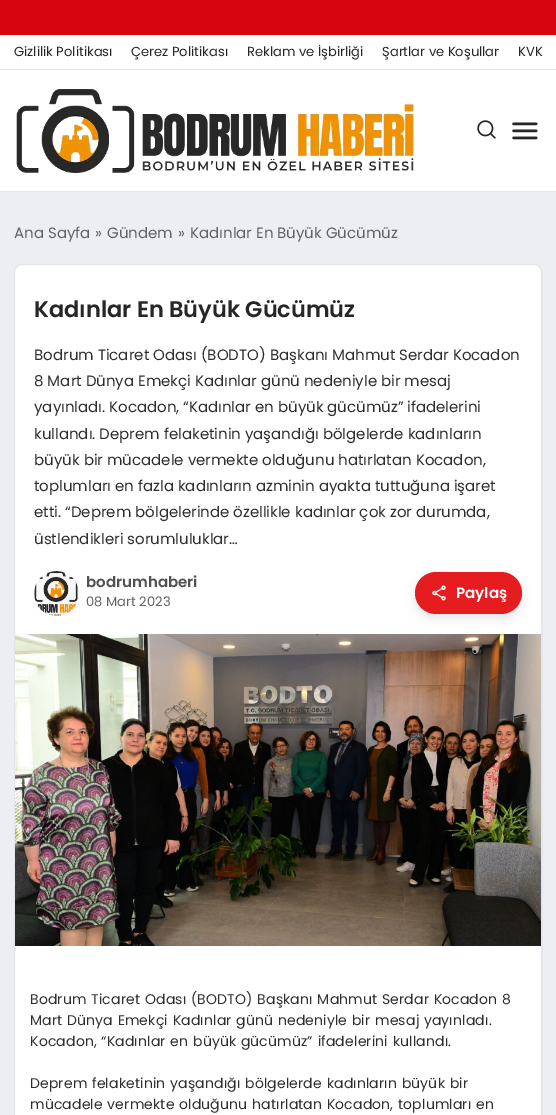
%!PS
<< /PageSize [556 1115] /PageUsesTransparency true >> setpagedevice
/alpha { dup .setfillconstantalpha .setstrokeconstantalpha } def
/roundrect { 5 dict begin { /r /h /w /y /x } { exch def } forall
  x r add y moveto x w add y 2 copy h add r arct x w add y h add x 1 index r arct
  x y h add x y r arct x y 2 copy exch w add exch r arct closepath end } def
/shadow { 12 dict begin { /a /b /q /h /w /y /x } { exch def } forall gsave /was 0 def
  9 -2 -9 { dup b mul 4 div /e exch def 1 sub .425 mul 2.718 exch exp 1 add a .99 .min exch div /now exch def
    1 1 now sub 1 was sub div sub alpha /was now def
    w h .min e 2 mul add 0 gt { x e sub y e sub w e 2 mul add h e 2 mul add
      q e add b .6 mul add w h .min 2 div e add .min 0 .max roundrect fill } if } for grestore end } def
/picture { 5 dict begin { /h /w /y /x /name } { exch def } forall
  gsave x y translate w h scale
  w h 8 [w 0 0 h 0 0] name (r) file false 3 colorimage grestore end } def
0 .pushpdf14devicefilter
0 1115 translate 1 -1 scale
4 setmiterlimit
0.929 0.929 0.957 setrgbcolor
0 0 556 1115 rectfill
0.843 0.02 0.059 setrgbcolor
0 0 556 35 rectfill
1 setgray
0 35 556 156 rectfill
0.902 setgray
0 191 556 1 rectfill
0 69 556 1 rectfill
/Poppins-Regular [13.1 0 0 -13.1 0 0] selectfont
0.149 setgray
14 56 moveto (Gizlilik Politikası) show
131 56 moveto (Çerez Politikası) show
247 56 moveto (Reklam ve İşbirliği) show
382 56 moveto (Şartlar ve Koşullar) show
518 56 moveto (KVK) show
(img1.rgb) 16 89 398 84 picture
(img2.rgb) 477 120 19 19 picture
(img3.rgb) 512 122 26 18 picture
/Poppins-Regular [15 0 0 -15 0 0] selectfont
0.384 0.384 0.392 setrgbcolor
14 238 moveto (Ana Sayfa) show
95 238 moveto (») show
107 238 moveto (Gündem) show
178 238 moveto (») show
190 238 moveto (Kadınlar En Büyük Gücümüz) show
1 setgray
14 264 528 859 8 roundrect fill
0.1 alpha
0 setgray
14.5 264.5 527 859 7.5 roundrect stroke
/Poppins-SemiBold [22.5 0 0 -22.5 0 0] selectfont
1 alpha
0.149 setgray
34 317 moveto (Kadınlar En Büyük Gücümüz) show
/Poppins-Regular [15 0 0 -15 0 0] selectfont
0.18 setgray
34 360 moveto (Bodrum Ticaret Odası \(BODTO\) Başkanı Mahmut Serdar Kocadon) show
34 386 moveto (8 Mart Dünya Emekçi Kadınlar günü nedeniyle bir mesaj) show
34 412 moveto (yayınladı. Kocadon, “Kadınlar en büyük gücümüz” ifadelerini) show
34 439 moveto (kullandı. Deprem felaketinin yaşandığı bölgelerde kadınların) show
34 465 moveto (büyük bir mücadele vermekte olduğunu hatırlatan Kocadon,) show
34 491 moveto (toplumları en fazla kadınların azminin ayakta tuttuğuna işaret) show
34 517 moveto (etti. “Deprem bölgelerinde özellikle kadınlar çok zor durumda,) show
34 544 moveto (üstlendikleri sorumluluklar…) show
(img4.rgb) 34 571 45 45 picture
/Poppins-SemiBold [15 0 0 -15 0 0] selectfont
0.318 setgray
86 587 moveto (bodrumhaberi) show
/Poppins-Regular [13.1 0 0 -13.1 0 0] selectfont
0.384 0.384 0.392 setrgbcolor
86 606 moveto (08 Mart 2023) show
0.42 0.447 0.502 setrgbcolor
415 576 107 42 21 5 0.2 shadow
0.898 0.11 0.125 setrgbcolor
415 572 107 42 21 roundrect fill
(img5.rgb) 432 585 14 16 picture
/Poppins-SemiBold [15 0 0 -15 0 0] selectfont
1 setgray
456 598 moveto (Paylaş) show
(img6.rgb) 15 634 526 312 picture
/Poppins-Regular [14 0 0 -14 0 0] selectfont
0.18 setgray
30 1004 moveto 0.75 0 32 0.15 0 (Bodrum Ticaret Odası \(BODTO\) Başkanı Mahmut Serdar Kocadon 8) awidthshow
30 1025 moveto 0.75 0 32 0.15 0 (Mart Dünya Emekçi Kadınlar günü nedeniyle bir mesaj yayınladı.) awidthshow
30 1046 moveto 0.75 0 32 0.15 0 (Kocadon, “Kadınlar en büyük gücümüz” ifadelerini kullandı.) awidthshow
30 1088 moveto 0.75 0 32 0.15 0 (Deprem felaketinin yaşandığı bölgelerde kadınların büyük bir) awidthshow
30 1109 moveto 0.75 0 32 0.15 0 (mücadele vermekte olduğunu hatırlatan Kocadon, toplumları en) awidthshow
.poppdf14devicefilter showpage
